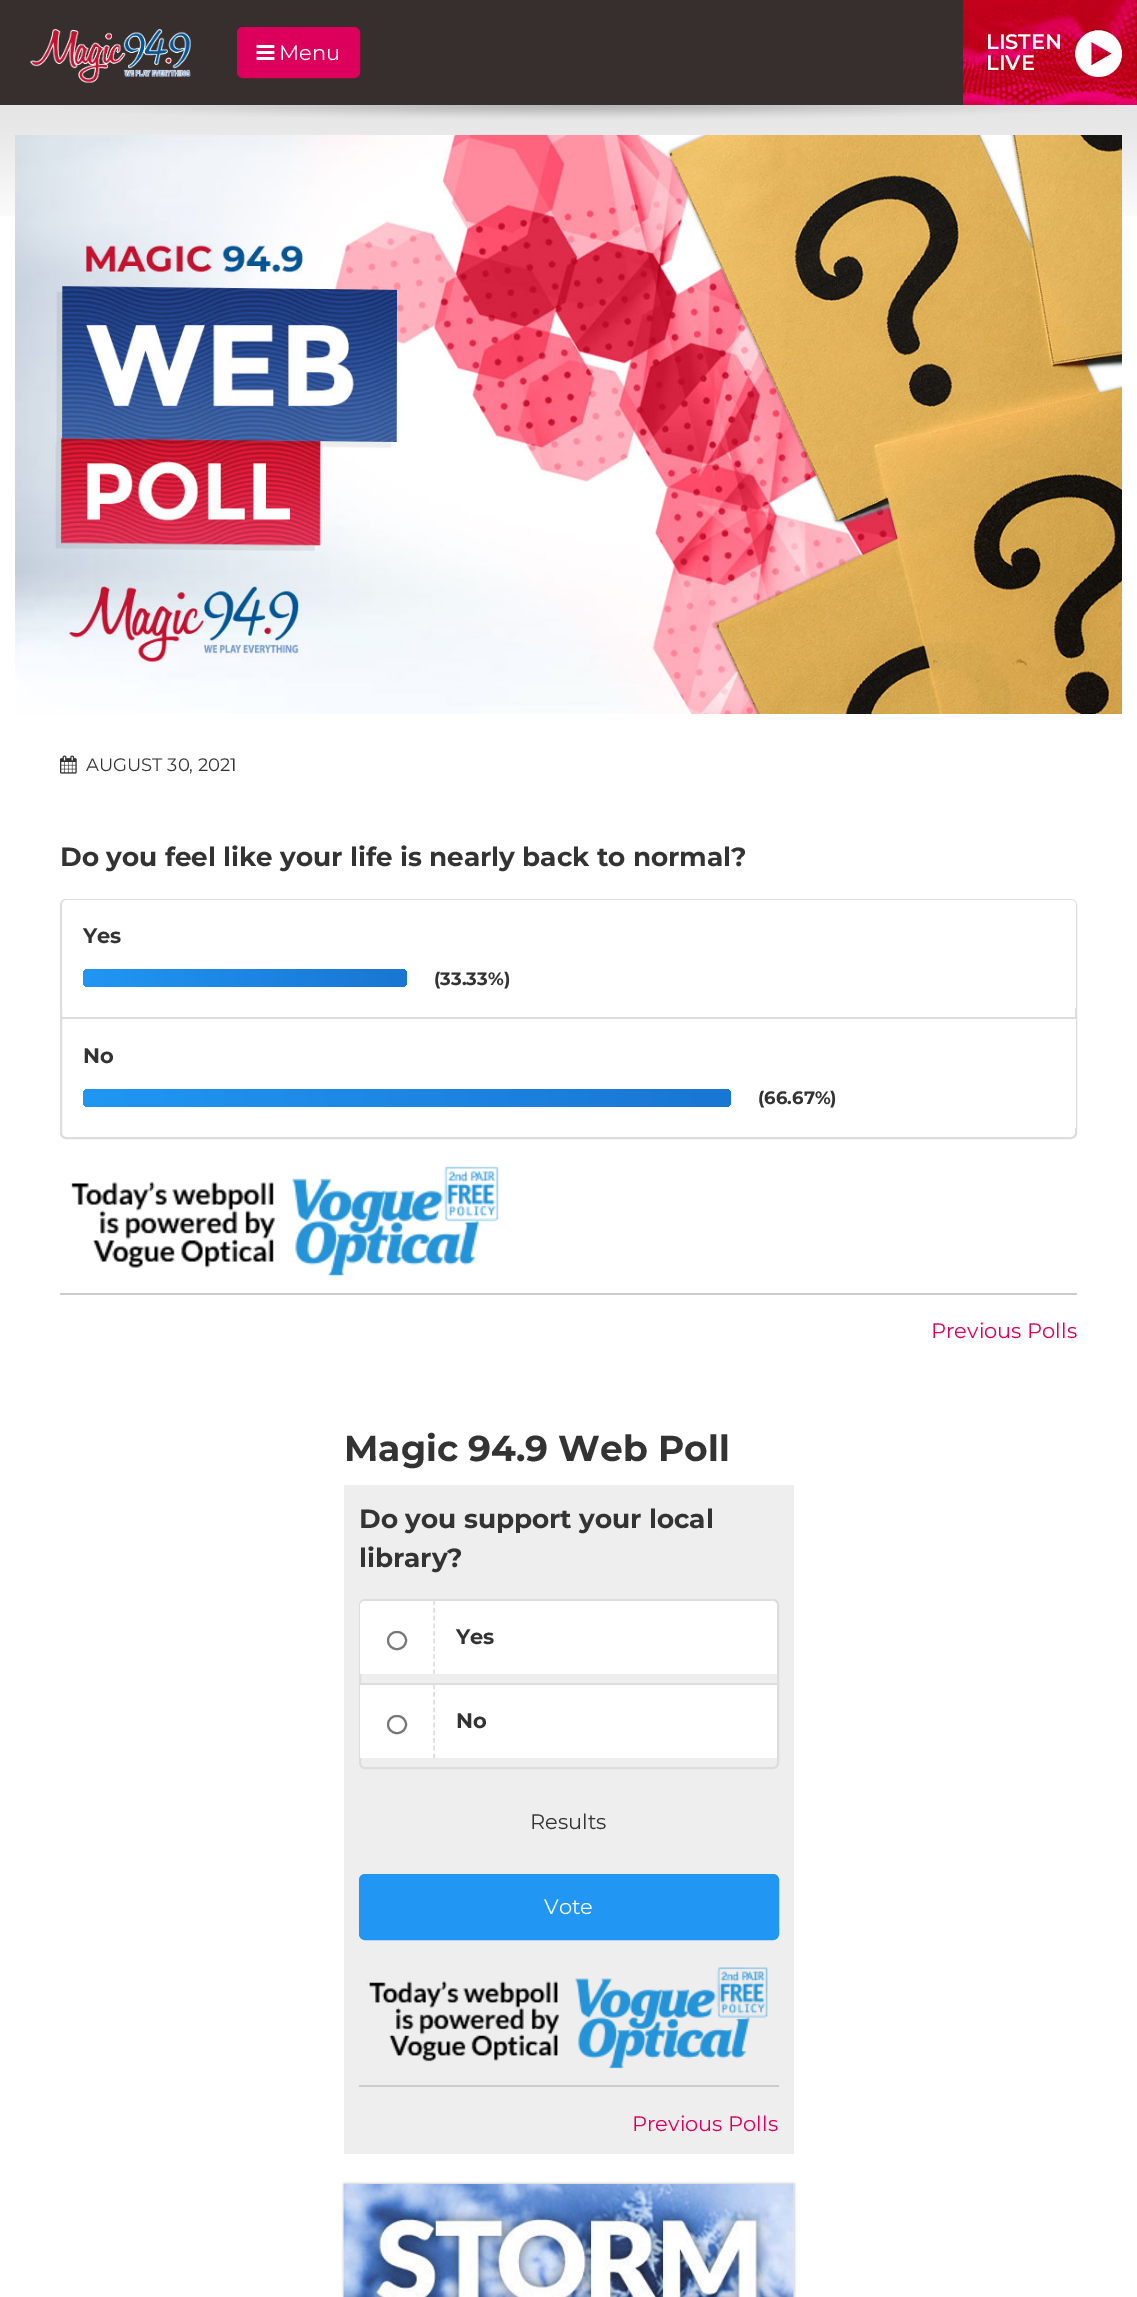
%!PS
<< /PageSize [1137 2297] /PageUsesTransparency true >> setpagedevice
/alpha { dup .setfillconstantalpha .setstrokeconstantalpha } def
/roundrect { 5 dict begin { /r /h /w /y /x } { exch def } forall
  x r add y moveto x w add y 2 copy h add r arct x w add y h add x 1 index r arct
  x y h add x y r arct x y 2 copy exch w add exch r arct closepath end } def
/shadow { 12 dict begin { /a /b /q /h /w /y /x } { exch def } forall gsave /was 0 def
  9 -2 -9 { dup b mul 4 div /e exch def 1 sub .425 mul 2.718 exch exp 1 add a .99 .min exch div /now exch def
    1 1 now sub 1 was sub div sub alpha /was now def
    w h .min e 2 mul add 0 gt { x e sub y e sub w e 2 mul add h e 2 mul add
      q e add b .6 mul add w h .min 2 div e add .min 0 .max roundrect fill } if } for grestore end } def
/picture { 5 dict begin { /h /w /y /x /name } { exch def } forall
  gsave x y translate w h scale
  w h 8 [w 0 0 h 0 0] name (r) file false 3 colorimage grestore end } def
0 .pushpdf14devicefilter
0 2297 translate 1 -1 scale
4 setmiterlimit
1 setgray
0 0 1137 2297 rectfill
0.216 0.184 0.176 setrgbcolor
0 0 963 105 rectfill
(img1.rgb) 30 28 161 55 picture
0.863 0 0.361 setrgbcolor
238 28 121 49 5 roundrect gsave fill grestore
2 setlinewidth
stroke
(img2.rgb) 256 45 19 15 picture
/Montserrat-Regular [21 0 0 -21 0 0] selectfont
1 setgray
279 60 moveto (Menu) show
(img3.rgb) 963 0 174 105 picture
/Montserrat-SemiBold [21 0 0 -21 0 0] selectfont
986 49 moveto (LISTEN) show
986 70 moveto (LIVE) show
(img4.rgb) 0 105 1137 111 picture
(img5.rgb) 15 135 1107 579 picture
(img6.rgb) 60 755 17 19 picture
/Montserrat-Regular [18 0 0 -18 0 0] selectfont
0.2 setgray
86 771 moveto (AUGUST 30, 2021) show
/Montserrat-Bold [26.25 0 0 -26.25 0 0] selectfont
60 866 moveto (Do you feel like your life is nearly back to normal?) show
0.867 setgray
61 900 1015 238 5 roundrect stroke
1 setgray
newpath 67 900 moveto 1071 900 lineto 1074 900 1076 902 1076 905 curveto 1076 1008 lineto 62 1008 lineto 62 905 lineto 62 902 64 900 67 900 curveto closepath fill
/Montserrat-Bold [21 0 0 -21 0 0] selectfont
0.2 setgray
83 943 moveto (Yes) show
gsave 83 969 324 18 6 roundrect clip newpath
<< /ShadingType 2 /ColorSpace /DeviceRGB /Coords [83 978 407 978] /Extend [true true] /Function << /FunctionType 2 /Domain [0 1] /C0 [0.129 0.588 0.953] /C1 [0.098 0.463 0.824] /N 1 >> >> shfill grestore
/Montserrat-Bold [18 0 0 -18 0 0] selectfont
434 985 moveto (\(33.33%\)) show
0.867 setgray
62 1017 1014 2 rectfill
1 setgray
1075 1019 1 109 rectfill
/Montserrat-Bold [21 0 0 -21 0 0] selectfont
0.2 setgray
83 1063 moveto (No) show
gsave 83 1089 648 18 6 roundrect clip newpath
<< /ShadingType 2 /ColorSpace /DeviceRGB /Coords [83 1098 731 1098] /Extend [true true] /Function << /FunctionType 2 /Domain [0 1] /C0 [0.129 0.588 0.953] /C1 [0.098 0.463 0.824] /N 1 >> >> shfill grestore
/Montserrat-Bold [18 0 0 -18 0 0] selectfont
758 1104 moveto (\(66.67%\)) show
(img7.rgb) 69 1166 430 110 picture
0.8 setgray
60 1293 1017 2 rectfill
/Montserrat-Regular [21 0 0 -21 0 0] selectfont
0.863 0 0.361 setrgbcolor
931 1338 moveto (Previous Polls) show
/Montserrat-Bold [36 0 0 -36 0 0] selectfont
0.2 setgray
344 1461 moveto (Magic 94.9 Web Poll) show
0.933 setgray
344 1485 450 669 rectfill
/Montserrat-Bold [26.25 0 0 -26.25 0 0] selectfont
0.2 setgray
359 1528 moveto (Do you support your local) show
359 1567 moveto (library?) show
0.867 setgray
360 1600 418 168 5 roundrect stroke
1 setgray
newpath 365 1601 moveto 772 1601 lineto 775 1601 777 1603 777 1606 curveto 777 1674 lineto 360 1674 lineto 360 1606 lineto 360 1603 362 1601 365 1601 curveto closepath fill
0.867 setgray
1.5 setlinewidth
[4.5 3.17] 0 setdash
newpath 434 1600.5 moveto 434 1674 lineto stroke
0.463 setgray
2 setlinewidth
[] 0 setdash
388 1632 18 17 8.5 roundrect stroke
/Montserrat-Bold [21 0 0 -21 0 0] selectfont
0.2 setgray
456 1644 moveto (Yes) show
0.867 setgray
360 1683 417 2 rectfill
1 setgray
360 1685 417 73 rectfill
0.867 setgray
1.5 setlinewidth
[4.5 3.17] 0 setdash
newpath 434 1684.5 moveto 434 1758 lineto stroke
0.463 setgray
2 setlinewidth
[] 0 setdash
388 1716 18 17 8.5 roundrect stroke
0.2 setgray
456 1728 moveto (No) show
/Montserrat-Regular [21 0 0 -21 0 0] selectfont
530 1829 moveto (Results) show
0.129 0.588 0.953 setrgbcolor
360 1875 418 64 5 roundrect gsave fill grestore
stroke
1 setgray
544 1914 moveto (Vote) show
(img8.rgb) 367 1967 401 102 picture
0.8 setgray
359 2085 420 2 rectfill
0.863 0 0.361 setrgbcolor
632 2131 moveto (Previous Polls) show
0 setgray
344 2184 450 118 0 1.5 0.3 shadow
(img9.rgb) 343 2184 451 113 picture
.poppdf14devicefilter showpage
